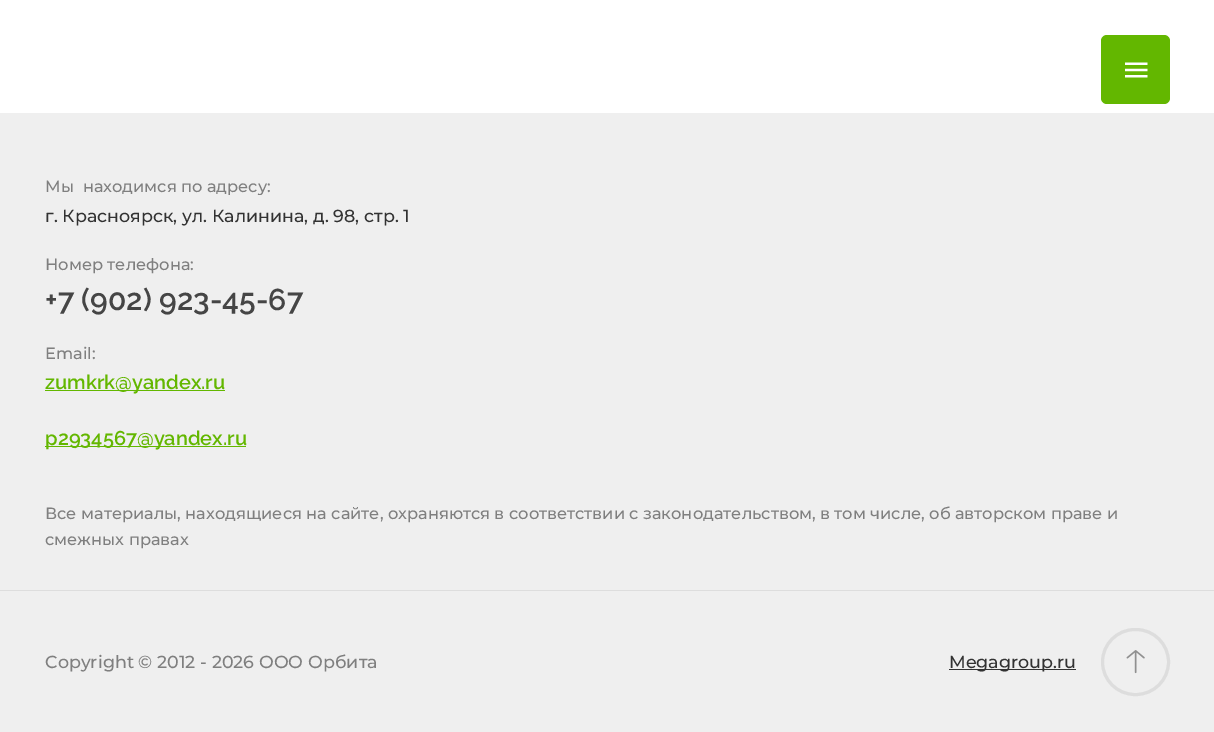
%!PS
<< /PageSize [1214 732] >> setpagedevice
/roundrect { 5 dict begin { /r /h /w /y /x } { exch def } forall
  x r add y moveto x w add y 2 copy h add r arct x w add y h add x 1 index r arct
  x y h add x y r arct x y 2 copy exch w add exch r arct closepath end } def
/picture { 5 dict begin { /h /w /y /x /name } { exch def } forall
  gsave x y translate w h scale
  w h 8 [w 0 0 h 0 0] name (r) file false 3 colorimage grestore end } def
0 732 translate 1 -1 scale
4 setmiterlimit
1 setgray
0 0 1214 732 rectfill
0.388 0.718 0 setrgbcolor
1101 35 69 69 6 roundrect fill
(img1.rgb) 1125 62 23 16 picture
0.937 setgray
0 113 1214 619 rectfill
gsave
45 175 226 20 rectclip
/Montserrat-Medium [16.25 0 0 -16.25 0 0] selectfont
0.498 setgray
45 192 moveto (Мы  находимся по адресу:) show
grestore
/Montserrat-Medium [17.5 0 0 -17.5 0 0] selectfont
0.196 setgray
45 222 moveto (г. Красноярск, ул. Калинина, д. 98, стр. 1) show
/Montserrat-Medium [16.25 0 0 -16.25 0 0] selectfont
0.498 setgray
45 270 moveto (Номер телефона:) show
/Raleway-Thin [30 0 0 -30 0 0] selectfont
0.271 setgray
45 310 moveto (+7 \(902\) 923-45-67) show
/Montserrat-Medium [16.25 0 0 -16.25 0 0] selectfont
0.498 setgray
45 359 moveto (Email:) show
0.388 0.718 0 setrgbcolor
45 390 180 1 rectfill
/Raleway-Thin [20 0 0 -20 0 0] selectfont
45 389 moveto (zumkrk@yandex.ru) show
45 446 201 1 rectfill
45 445 moveto (p2934567@yandex.ru) show
/Montserrat-Medium [16.25 0 0 -16.25 0 0] selectfont
0.498 setgray
45 519 moveto (Все материалы, находящиеся на сайте, охраняются в соответствии с законодательством, в том числе, об авторском праве и) show
45 545 moveto (смежных правах) show
0.867 setgray
0 590 1214 1 rectfill
/Montserrat-Medium [17.5 0 0 -17.5 0 0] selectfont
0.498 setgray
45 668 moveto (Copyright © 2012 - 2026 ООО Орбита) show
0.196 setgray
949 669 127 1 rectfill
949 668 moveto (Megagroup.ru) show
0.867 setgray
3 setlinewidth
1102.5 629.5 66 65 32.5 roundrect stroke
(img2.rgb) 1126 650 19 24 picture
showpage
